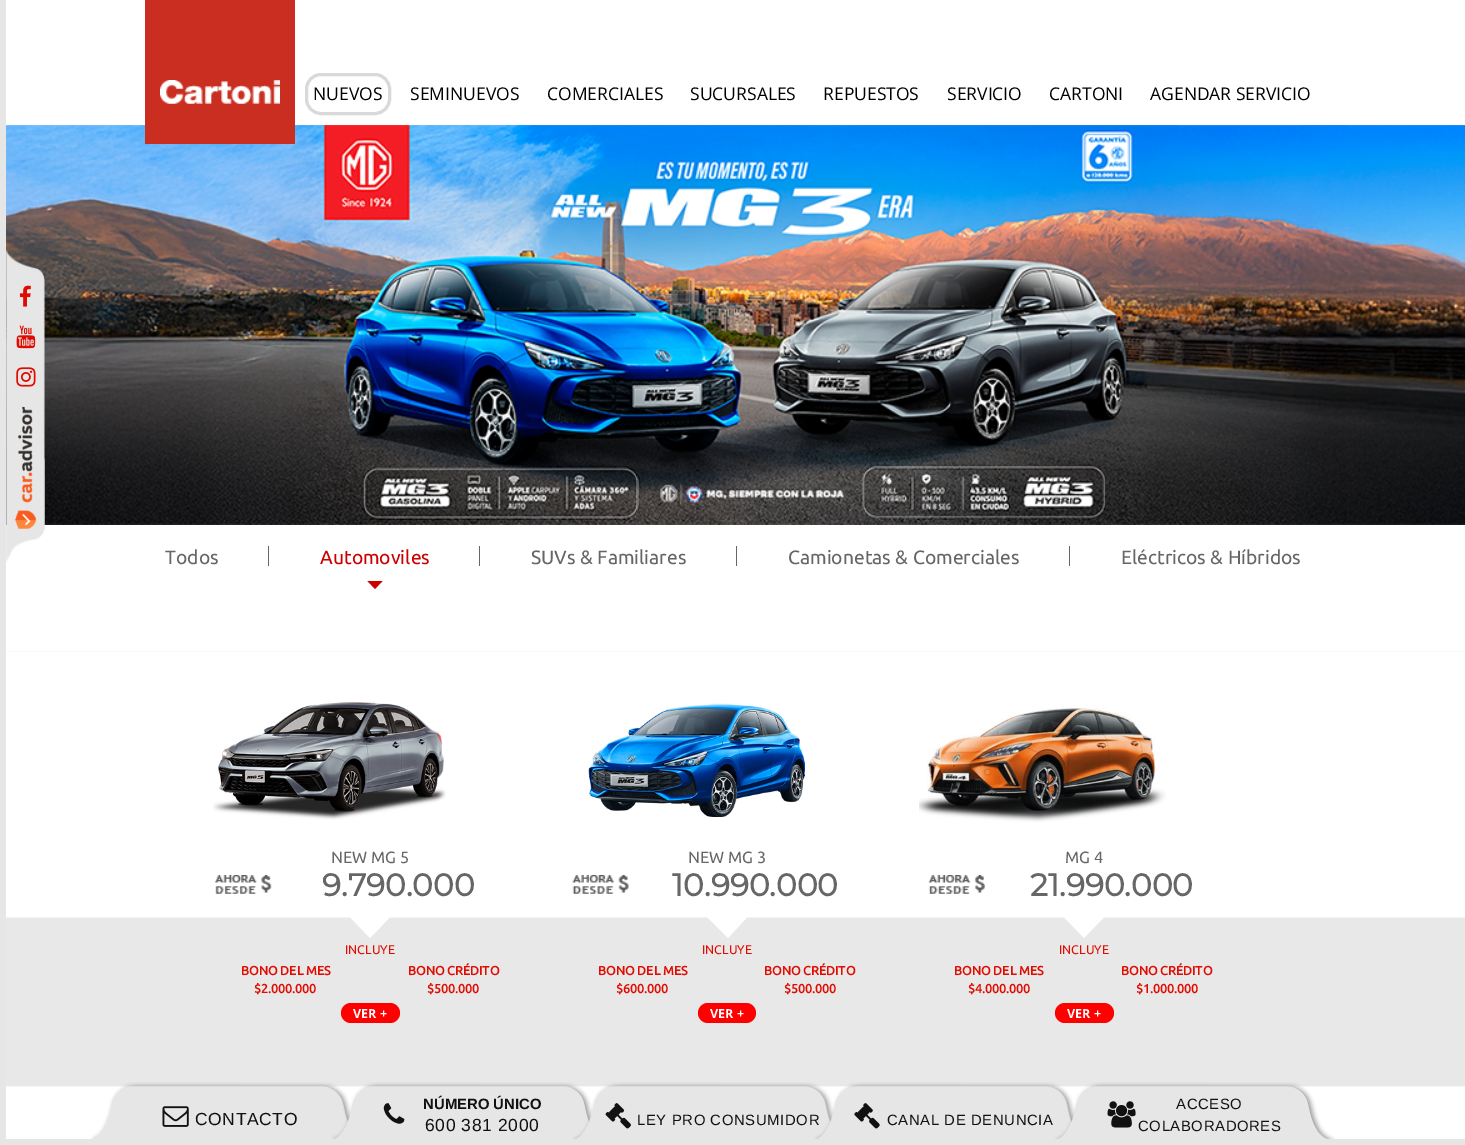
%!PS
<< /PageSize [1465 1145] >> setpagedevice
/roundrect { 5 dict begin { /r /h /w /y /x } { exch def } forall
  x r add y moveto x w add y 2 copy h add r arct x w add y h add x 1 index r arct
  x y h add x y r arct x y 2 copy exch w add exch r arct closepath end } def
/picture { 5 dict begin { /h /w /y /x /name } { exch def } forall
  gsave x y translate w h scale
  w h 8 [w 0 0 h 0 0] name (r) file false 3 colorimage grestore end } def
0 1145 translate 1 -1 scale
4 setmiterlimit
1 setgray
0 0 1465 1145 rectfill
0.902 setgray
0 1139 1465 6 rectfill
0 0 6 1145 rectfill
(img7.rgb) 6 125 1459 400 picture
(img1.rgb) 6 250 39 312 picture
(img2.rgb) 19 285 12 22 picture
(img3.rgb) 16 325 20 24 picture
(img4.rgb) 16 367 20 20 picture
(img5.rgb) 14 406 23 123 picture
0.788 0.18 0.125 setrgbcolor
145 0 150 144 rectfill
(img6.rgb) 160 80 120 24 picture
0.851 setgray
3 setlinewidth
306.5 74.5 83 39 14.5 roundrect stroke
/OpenSans-Regular [17.5 0 0 -17.5 0 0] selectfont
0 setgray
313 100 moveto (NUEVOS) show
410 100 moveto (SEMINUEVOS) show
547 100 moveto (COMERCIALES) show
690 100 moveto (SUCURSALES) show
823 100 moveto (REPUESTOS) show
947 100 moveto (SERVICIO) show
1049 100 moveto (CARTONI) show
1150 100 moveto (AGENDAR SERVICIO) show
/Ubuntu-Regular [19.25 0 0 -19.25 0 0] selectfont
0.4 setgray
165 564 moveto (Todos) show
268 546 1 20 rectfill
0.8 0 0 setrgbcolor
320 564 moveto (Automoviles) show
newpath 367.5 581 moveto 382.5 581 lineto 375 589 lineto closepath fill
0.4 setgray
479 546 1 20 rectfill
531 564 moveto (SUVs & Familiares) show
736 546 1 20 rectfill
788 564 moveto (Camionetas & Comerciales) show
1069 546 1 20 rectfill
1121 564 moveto (Eléctricos & Híbridos) show
(img8.rgb) 6 651 1459 436 picture
(img9.rgb) 213 702 233 118 picture
/Ubuntu-Regular [16.25 0 0 -16.25 0 0] selectfont
331 863 moveto (NEW MG 5) show
(img10.rgb) 215 875 57 19 picture
/Montserrat-Bold [31.25 0 0 -31.25 0 0] selectfont
322 896 moveto (9.790.000) show
1 setgray
newpath 345 912 moveto 395 912 lineto 370 938 lineto closepath fill
/Ubuntu-Regular [12.5 0 0 -12.5 0 0] selectfont
0.878 0.043 0.004 setrgbcolor
345 954 moveto (INCLUYE) show
/Ubuntu-Bold [12.5 0 0 -12.5 0 0] selectfont
241 975 moveto (BONO DEL MES) show
408 975 moveto (BONO CRÉDITO) show
254 993 moveto ($2.000.000) show
427 993 moveto ($500.000) show
1 0 0 setrgbcolor
341 1003 59 20 10 roundrect fill
/OpenSans-Bold [12.5 0 0 -12.5 0 0] selectfont
1 setgray
353 1018 moveto (VER +) show
(img11.rgb) 588 703 217 114 picture
/Ubuntu-Regular [16.25 0 0 -16.25 0 0] selectfont
0.4 setgray
688 863 moveto (NEW MG 3) show
(img12.rgb) 572 875 57 19 picture
/Montserrat-Bold [31.25 0 0 -31.25 0 0] selectfont
672 896 moveto (10.990.000) show
1 setgray
newpath 702 912 moveto 752 912 lineto 728 938 lineto closepath fill
/Ubuntu-Regular [12.5 0 0 -12.5 0 0] selectfont
0.878 0.043 0.004 setrgbcolor
702 954 moveto (INCLUYE) show
/Ubuntu-Bold [12.5 0 0 -12.5 0 0] selectfont
598 975 moveto (BONO DEL MES) show
764 975 moveto (BONO CRÉDITO) show
616 993 moveto ($600.000) show
784 993 moveto ($500.000) show
1 0 0 setrgbcolor
698 1003 58 20 10 roundrect fill
/OpenSans-Bold [12.5 0 0 -12.5 0 0] selectfont
1 setgray
710 1018 moveto (VER +) show
(img13.rgb) 919 707 247 115 picture
/Ubuntu-Regular [16.25 0 0 -16.25 0 0] selectfont
0.4 setgray
1065 863 moveto (MG 4) show
(img14.rgb) 928 875 57 19 picture
/Montserrat-Bold [31.25 0 0 -31.25 0 0] selectfont
1030 896 moveto (21.990.000) show
1 setgray
newpath 1059 912 moveto 1109 912 lineto 1084 938 lineto closepath fill
/Ubuntu-Regular [12.5 0 0 -12.5 0 0] selectfont
0.878 0.043 0.004 setrgbcolor
1059 954 moveto (INCLUYE) show
/Ubuntu-Bold [12.5 0 0 -12.5 0 0] selectfont
954 975 moveto (BONO DEL MES) show
1121 975 moveto (BONO CRÉDITO) show
968 993 moveto ($4.000.000) show
1136 993 moveto ($1.000.000) show
1 0 0 setrgbcolor
1055 1003 59 20 10 roundrect fill
/OpenSans-Bold [12.5 0 0 -12.5 0 0] selectfont
1 setgray
1067 1018 moveto (VER +) show
(img15.rgb) 91 1082 260 57 picture
(img16.rgb) 162 1106 27 21 picture
/LiberationSans-Regular [17.5 0 0 -17.5 0 0] selectfont
0.067 setgray
195 1125 moveto 0.6 0 (CONTACTO) ashow
(img17.rgb) 332 1082 261 57 picture
(img18.rgb) 383 1103 22 21 picture
/LiberationSans-Bold [14.9 0 0 -14.9 0 0] selectfont
423 1109 moveto (NÚMERO ÚNICO) show
/LiberationSans-Regular [17.5 0 0 -17.5 0 0] selectfont
425 1131 moveto 0.6 0 (600 381 2000) ashow
(img19.rgb) 573 1082 261 57 picture
(img20.rgb) 605 1103 26 26 picture
/LiberationSans-Regular [14.9 0 0 -14.9 0 0] selectfont
637 1125 moveto 0.6 0 (LEY PRO CONSUMIDOR) ashow
(img21.rgb) 814 1082 261 57 picture
(img22.rgb) 854 1103 26 26 picture
887 1125 moveto 0.6 0 (CANAL DE DENUNCIA) ashow
(img23.rgb) 1055 1082 280 57 picture
(img24.rgb) 1107 1101 29 27 picture
1176 1109 moveto 0.6 0 (ACCESO) ashow
1138 1131 moveto 0.6 0 (COLABORADORES) ashow
showpage
